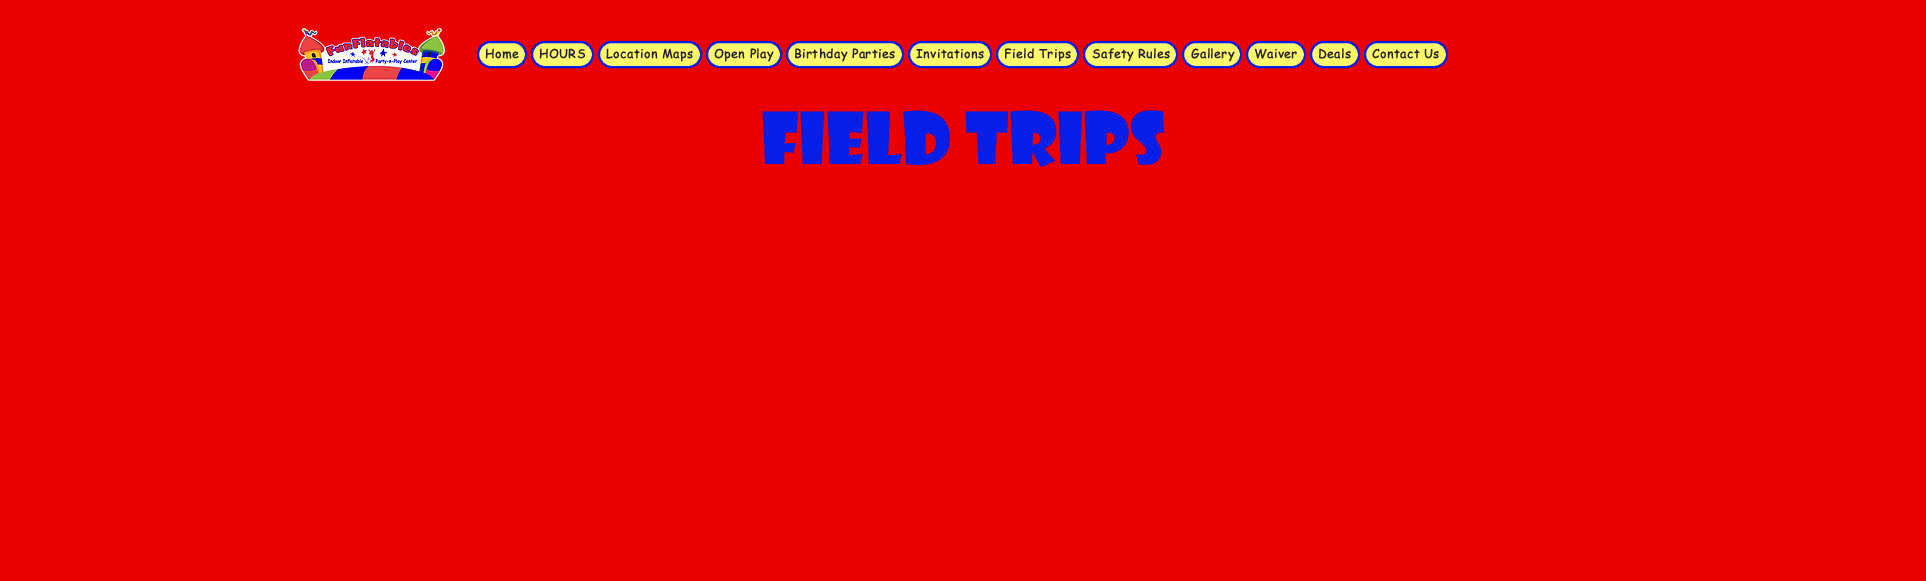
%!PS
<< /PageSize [1926 581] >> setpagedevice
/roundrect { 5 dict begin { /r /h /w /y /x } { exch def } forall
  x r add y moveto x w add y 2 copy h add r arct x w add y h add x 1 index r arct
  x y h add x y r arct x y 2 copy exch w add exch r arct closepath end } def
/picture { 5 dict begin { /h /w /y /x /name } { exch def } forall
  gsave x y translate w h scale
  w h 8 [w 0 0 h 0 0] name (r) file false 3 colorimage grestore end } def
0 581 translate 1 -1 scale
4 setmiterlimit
0.922 0 0 setrgbcolor
0 0 1926 581 rectfill
(img1.rgb) 298 28 148 53 picture
1 0.973 0.42 setrgbcolor
478 42 48 25 12.5 roundrect gsave fill grestore
0.02 0.122 0.91 setrgbcolor
2 setlinewidth
stroke
/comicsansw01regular-Bold [12 0 0 -12 0 0] selectfont
0.141 0.137 0.137 setrgbcolor
485 58 moveto 0.6 0 (Home) ashow
1 0.973 0.42 setrgbcolor
532 42 61 25 12.5 roundrect gsave fill grestore
0.02 0.122 0.91 setrgbcolor
stroke
0.141 0.137 0.137 setrgbcolor
539 58 moveto 0.6 0 (HOURS) ashow
1 0.973 0.42 setrgbcolor
599 42 102 25 12.5 roundrect gsave fill grestore
0.02 0.122 0.91 setrgbcolor
stroke
0.141 0.137 0.137 setrgbcolor
606 58 moveto 0.6 0 (Location Maps) ashow
1 0.973 0.42 setrgbcolor
707 42 74 25 12.5 roundrect gsave fill grestore
0.02 0.122 0.91 setrgbcolor
stroke
0.141 0.137 0.137 setrgbcolor
714 58 moveto 0.6 0 (Open Play) ashow
1 0.973 0.42 setrgbcolor
787 42 116 25 12.5 roundrect gsave fill grestore
0.02 0.122 0.91 setrgbcolor
stroke
0.141 0.137 0.137 setrgbcolor
794 58 moveto 0.6 0 (Birthday Parties) ashow
1 0.973 0.42 setrgbcolor
909 42 82 25 12.5 roundrect gsave fill grestore
0.02 0.122 0.91 setrgbcolor
stroke
0.141 0.137 0.137 setrgbcolor
916 58 moveto 0.6 0 (Invitations) ashow
1 0.973 0.42 setrgbcolor
997 42 81 25 12.5 roundrect gsave fill grestore
0.02 0.122 0.91 setrgbcolor
stroke
0.141 0.137 0.137 setrgbcolor
1004 58 moveto 0.6 0 (Field Trips) ashow
1 0.973 0.42 setrgbcolor
1084 42 93 25 12.5 roundrect gsave fill grestore
0.02 0.122 0.91 setrgbcolor
stroke
0.141 0.137 0.137 setrgbcolor
1092 58 moveto 0.6 0 (Safety Rules) ashow
1 0.973 0.42 setrgbcolor
1183 42 58 25 12.5 roundrect gsave fill grestore
0.02 0.122 0.91 setrgbcolor
stroke
0.141 0.137 0.137 setrgbcolor
1191 58 moveto 0.6 0 (Gallery) ashow
1 0.973 0.42 setrgbcolor
1247 42 58 25 12.5 roundrect gsave fill grestore
0.02 0.122 0.91 setrgbcolor
stroke
0.141 0.137 0.137 setrgbcolor
1254 58 moveto 0.6 0 (Waiver) ashow
1 0.973 0.42 setrgbcolor
1311 42 48 25 12.5 roundrect gsave fill grestore
0.02 0.122 0.91 setrgbcolor
stroke
0.141 0.137 0.137 setrgbcolor
1318 58 moveto 0.6 0 (Deals) ashow
1 0.973 0.42 setrgbcolor
1365 42 82 25 12.5 roundrect gsave fill grestore
0.02 0.122 0.91 setrgbcolor
stroke
0.141 0.137 0.137 setrgbcolor
1372 58 moveto 0.6 0 (Contact Us) ashow
/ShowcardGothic-Regular [70 0 0 -70 0 0] selectfont
0.02 0.122 0.91 setrgbcolor
761 164 moveto (field trips) show
showpage
